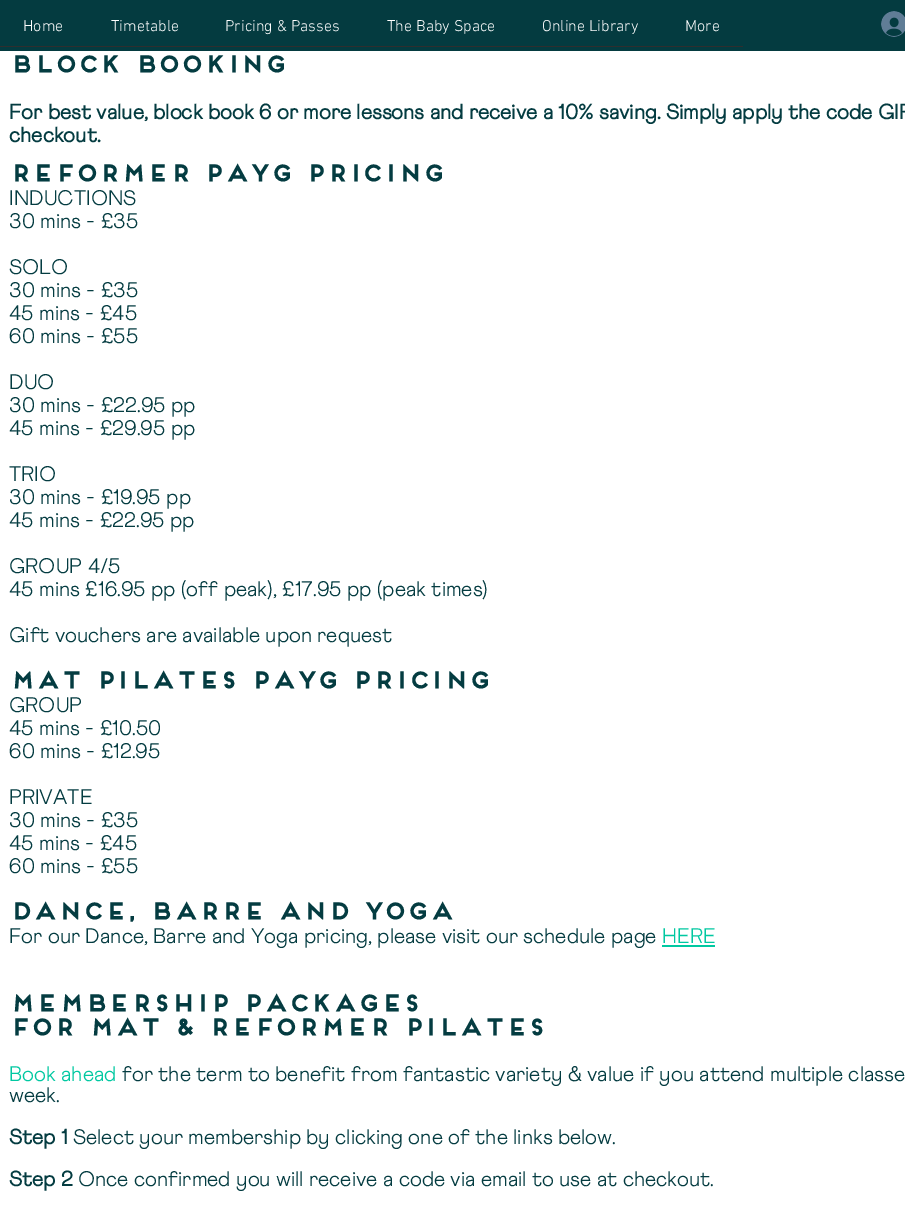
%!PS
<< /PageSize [905 1223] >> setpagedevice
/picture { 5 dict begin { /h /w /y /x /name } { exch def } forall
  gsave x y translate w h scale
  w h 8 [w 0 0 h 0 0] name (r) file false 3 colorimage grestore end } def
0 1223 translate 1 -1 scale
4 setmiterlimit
1 setgray
0 0 905 1223 rectfill
0.016 0.231 0.251 setrgbcolor
0 0 905 51 rectfill
/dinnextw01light-Light [16 0 0 -16 0 0] selectfont
1 setgray
23 31 moveto (Home) show
111 31 moveto (Timetable) show
225 31 moveto (Pricing & Passes) show
387 31 moveto (The Baby Space) show
542 31 moveto (Online Library) show
685 31 moveto (More) show
0.184 0.18 0.18 setrgbcolor
0 46 743 1 rectfill
(img1.rgb) 881 11 24 26 picture
/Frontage-Bold [23 0 0 -23 0 0] selectfont
0.016 0.235 0.255 setrgbcolor
9 72 moveto (block booking) show
/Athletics-Bold [21 0 0 -21 0 0] selectfont
9 119 moveto (For best value, block book 6 or more lessons and receive a 10% saving. Simply apply the code GIF) show
9 142 moveto (checkout.) show
/Frontage-Bold [23 0 0 -23 0 0] selectfont
9 181 moveto (REFORMER payg pricing) show
/Athletics-Light [21 0 0 -21 0 0] selectfont
9 205 moveto (INDUCTIONS) show
9 228 moveto (30 mins - £35) show
9 274 moveto (SOLO) show
9 297 moveto (30 mins - £35) show
9 320 moveto (45 mins - £45) show
9 343 moveto (60 mins - £55) show
9 389 moveto (DUO) show
9 412 moveto (30 mins - £22.95 pp) show
9 435 moveto (45 mins - £29.95 pp) show
9 481 moveto (TRIO) show
9 504 moveto (30 mins - £19.95 pp) show
9 527 moveto (45 mins - £22.95 pp) show
9 573 moveto (GROUP 4/5) show
9 596 moveto (45 mins £16.95 pp \(off peak\), £17.95 pp \(peak times\)) show
9 642 moveto (Gift vouchers are available upon request) show
/Frontage-Bold [23 0 0 -23 0 0] selectfont
9 688 moveto (MAT pilates payg pricing) show
/Athletics-Light [21 0 0 -21 0 0] selectfont
9 712 moveto (GROUP) show
9 735 moveto (45 mins - £10.50) show
9 758 moveto (60 mins - £12.95) show
9 804 moveto (PRIVATE) show
9 827 moveto (30 mins - £35) show
9 850 moveto (45 mins - £45) show
9 873 moveto (60 mins - £55) show
/Frontage-Bold [23 0 0 -23 0 0] selectfont
9 919 moveto (Dance, Barre and yoga) show
/Athletics-Light [21 0 0 -21 0 0] selectfont
9 943 moveto (For our Dance, Barre and Yoga pricing, please visit our schedule page) show
0 0.784 0.631 setrgbcolor
662 945 53 2 rectfill
662 943 moveto (HERE) show
/Frontage-Bold [23 0 0 -23 0 0] selectfont
0.016 0.235 0.255 setrgbcolor
9 1011 moveto (membership packages) show
9 1035 moveto (FOR Mat & Reformer pilates) show
/Athletics-Light [21 0 0 -21 0 0] selectfont
0 0.784 0.631 setrgbcolor
9 1081 moveto (Book ahead) show
0.016 0.235 0.255 setrgbcolor
122 1081 moveto (for the term to benefit from fantastic variety & value if you attend multiple classe) show
9 1102 moveto (week.) show
/Athletics-Bold [21 0 0 -21 0 0] selectfont
9 1144 moveto (Step 1) show
/Athletics-Light [21 0 0 -21 0 0] selectfont
73 1144 moveto (Select your membership by clicking one of the links below.) show
/Athletics-Bold [21 0 0 -21 0 0] selectfont
9 1186 moveto (Step 2) show
/Athletics-Light [21 0 0 -21 0 0] selectfont
78 1186 moveto (Once confirmed you will receive a code via email to use at checkout.) show
showpage
